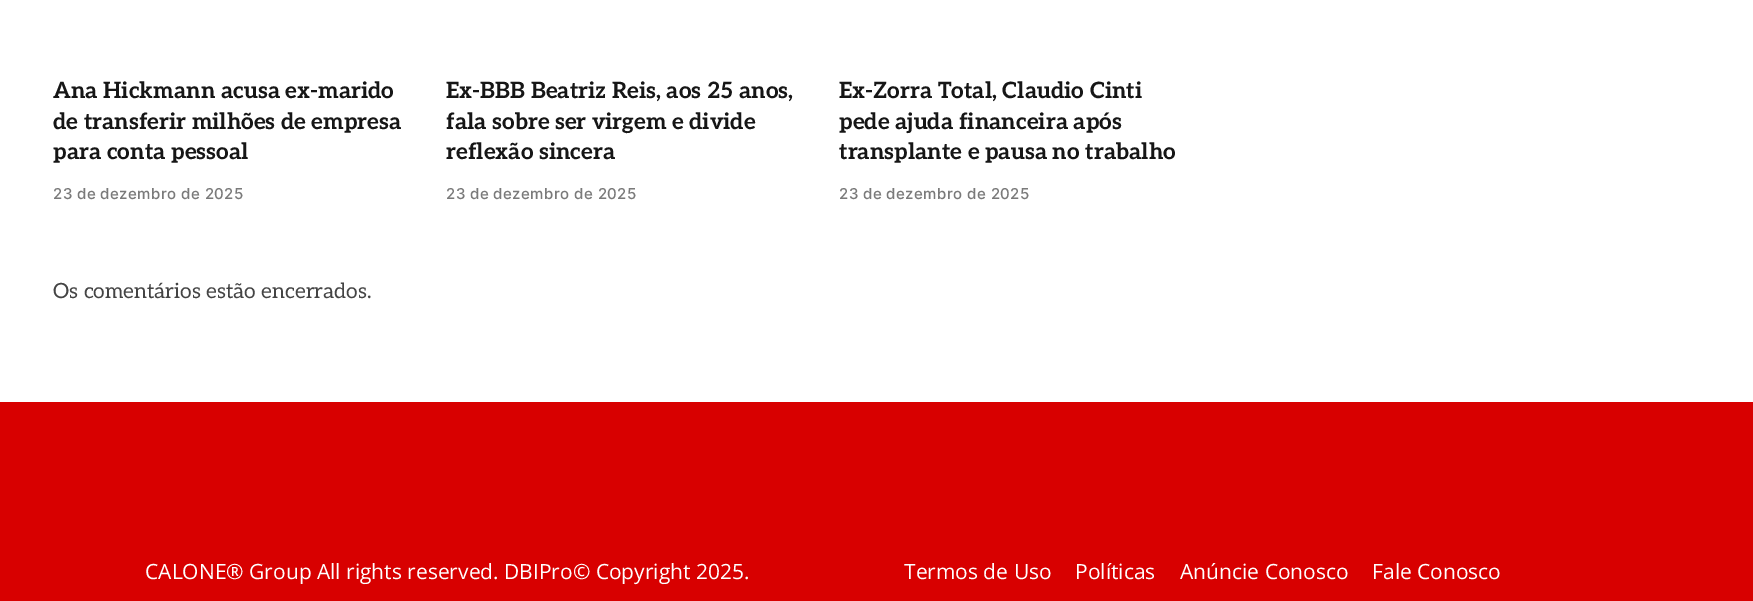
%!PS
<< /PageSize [1753 601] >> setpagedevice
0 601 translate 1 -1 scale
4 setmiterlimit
1 setgray
0 0 1753 601 rectfill
/Aleo-Bold [22.5 0 0 -22.5 0 0] selectfont
0.086 setgray
53 98 moveto (Ana Hickmann acusa ex-marido) show
53 129 moveto (de transferir milhões de empresa) show
53 159 moveto (para conta pessoal) show
/Inter-Medium [15 0 0 -15 0 0] selectfont
0.478 setgray
53 199 moveto 0.45 0 (23 de dezembro de 2025) ashow
/Aleo-Bold [22.5 0 0 -22.5 0 0] selectfont
0.086 setgray
446 98 moveto (Ex-BBB Beatriz Reis, aos 25 anos,) show
446 129 moveto (fala sobre ser virgem e divide) show
446 159 moveto (reflexão sincera) show
/Inter-Medium [15 0 0 -15 0 0] selectfont
0.478 setgray
446 199 moveto 0.45 0 (23 de dezembro de 2025) ashow
/Aleo-Bold [22.5 0 0 -22.5 0 0] selectfont
0.086 setgray
839 98 moveto (Ex-Zorra Total, Claudio Cinti) show
839 129 moveto (pede ajuda financeira após) show
839 159 moveto (transplante e pausa no trabalho) show
/Inter-Medium [15 0 0 -15 0 0] selectfont
0.478 setgray
839 199 moveto 0.45 0 (23 de dezembro de 2025) ashow
/Aleo-Regular [21 0 0 -21 0 0] selectfont
0.267 setgray
53 298 moveto (Os comentários estão encerrados.) show
0.847 0 0 setrgbcolor
0 402 1753 199 rectfill
/OpenSans-Regular [21 0 0 -21 0 0] selectfont
1 setgray
145 579 moveto (CALONE® Group All rights reserved. DBIPro© Copyright 2025.) show
904 579 moveto (Termos de Uso) show
1075 579 moveto (Políticas) show
1180 579 moveto (Anúncie Conosco) show
1372 579 moveto (Fale Conosco) show
showpage
